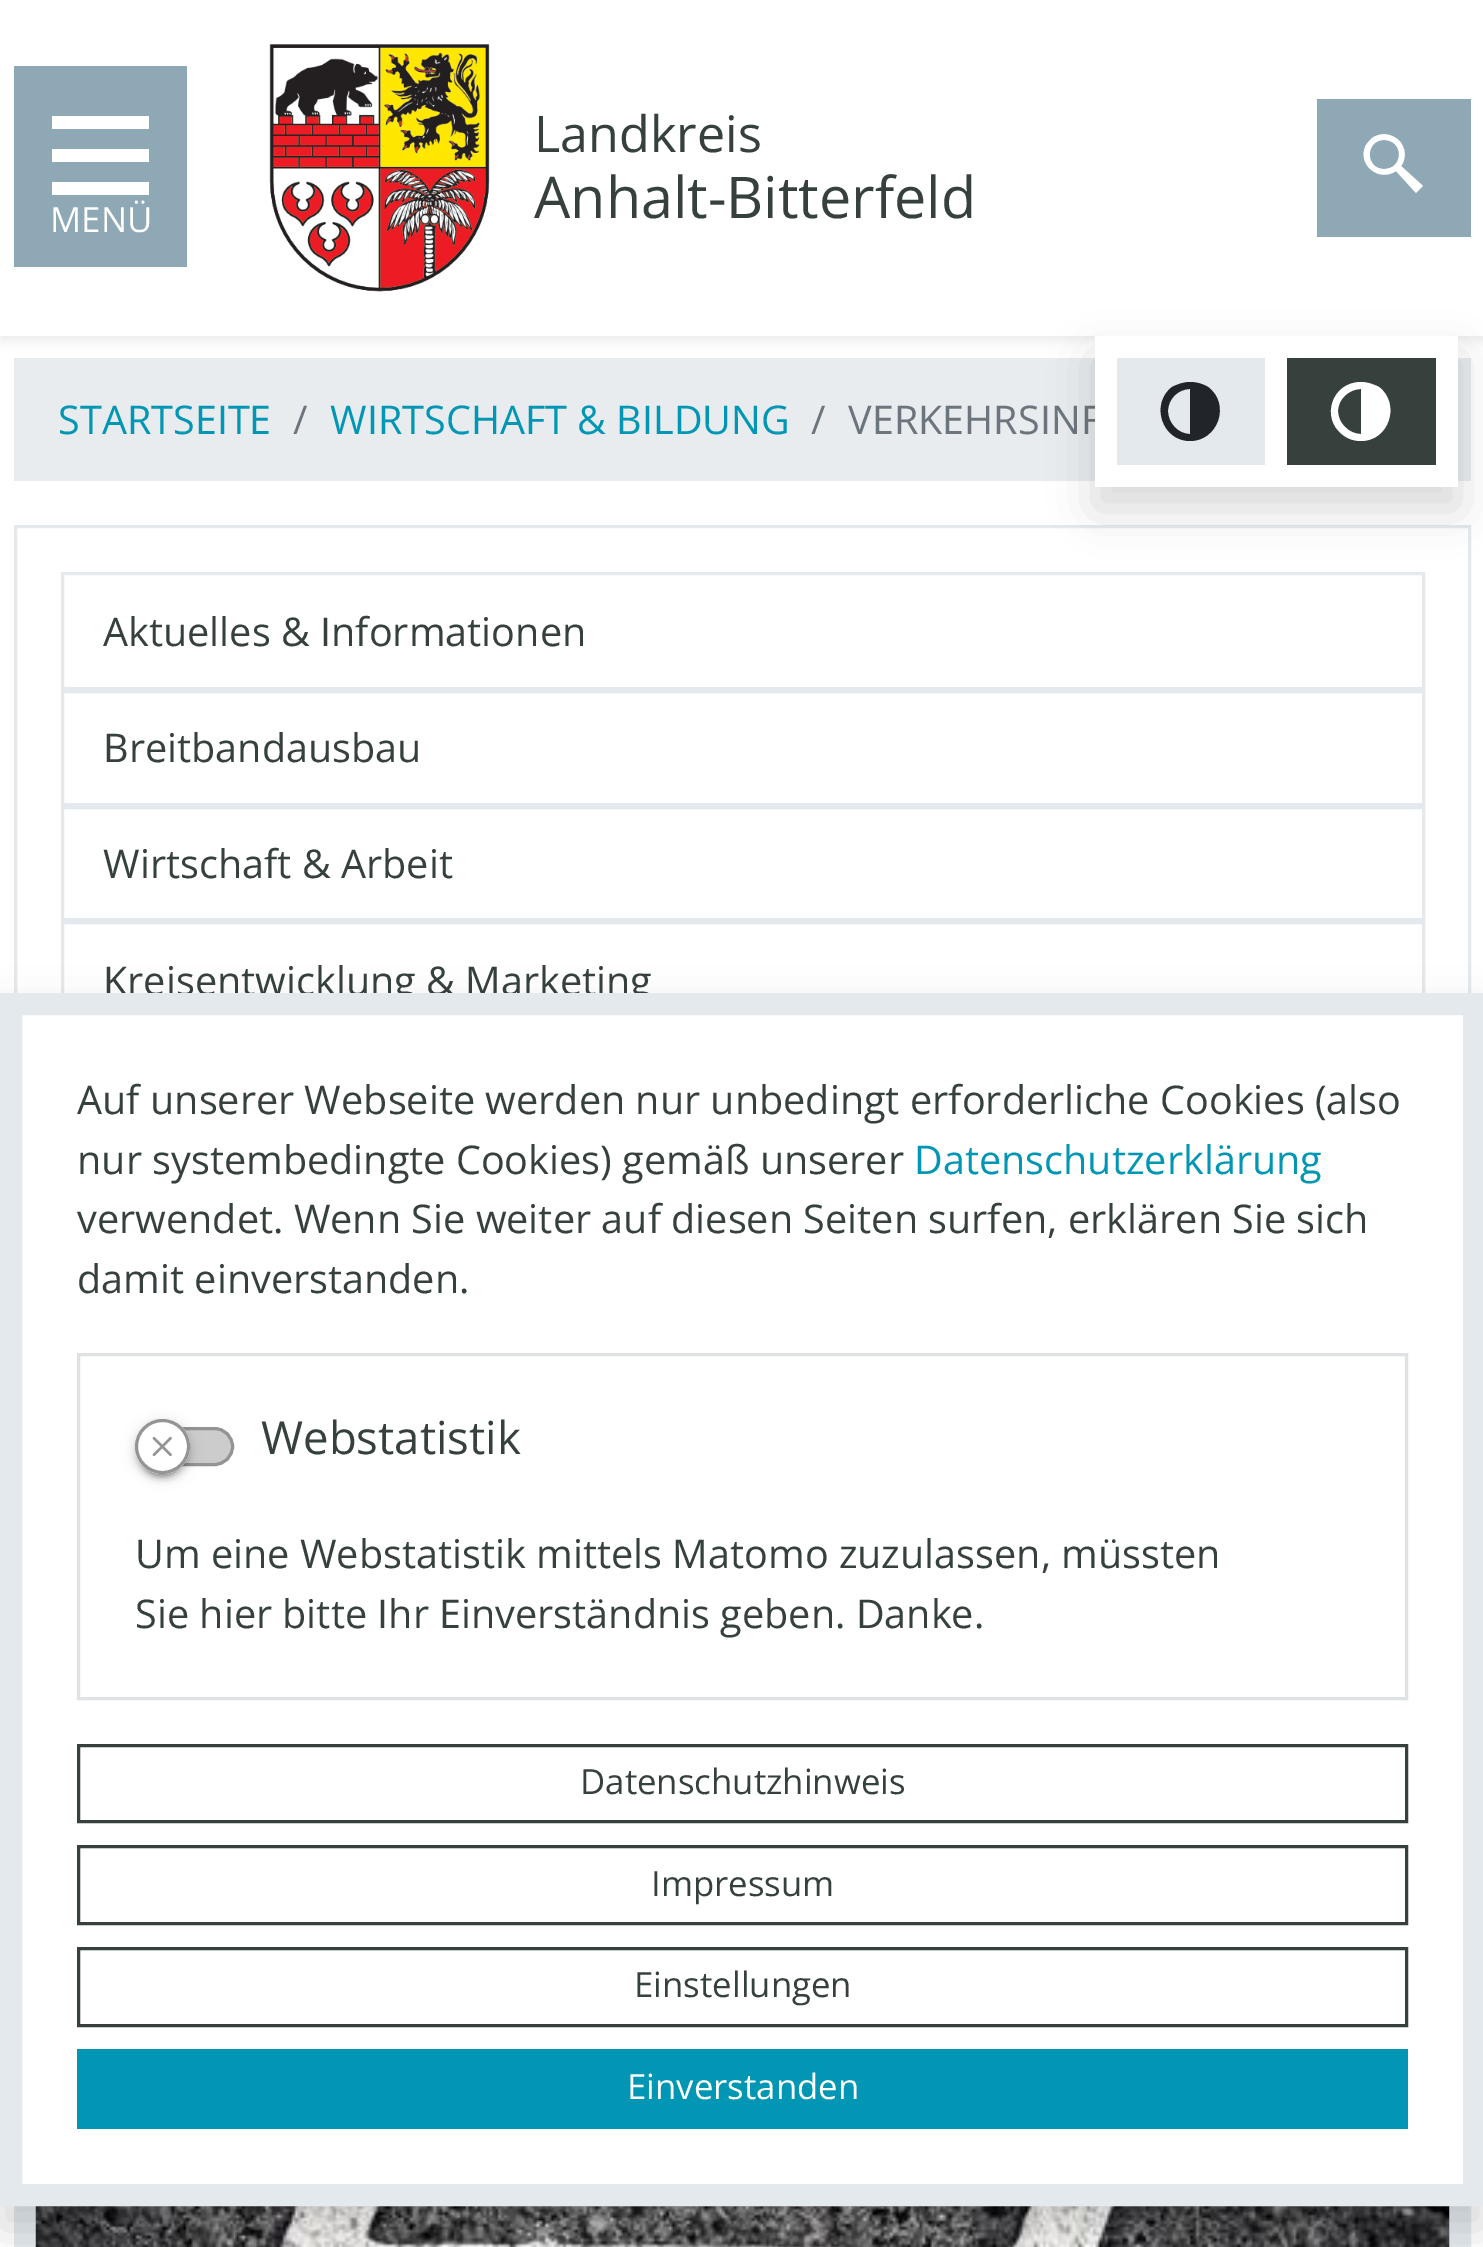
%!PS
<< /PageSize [1483 2247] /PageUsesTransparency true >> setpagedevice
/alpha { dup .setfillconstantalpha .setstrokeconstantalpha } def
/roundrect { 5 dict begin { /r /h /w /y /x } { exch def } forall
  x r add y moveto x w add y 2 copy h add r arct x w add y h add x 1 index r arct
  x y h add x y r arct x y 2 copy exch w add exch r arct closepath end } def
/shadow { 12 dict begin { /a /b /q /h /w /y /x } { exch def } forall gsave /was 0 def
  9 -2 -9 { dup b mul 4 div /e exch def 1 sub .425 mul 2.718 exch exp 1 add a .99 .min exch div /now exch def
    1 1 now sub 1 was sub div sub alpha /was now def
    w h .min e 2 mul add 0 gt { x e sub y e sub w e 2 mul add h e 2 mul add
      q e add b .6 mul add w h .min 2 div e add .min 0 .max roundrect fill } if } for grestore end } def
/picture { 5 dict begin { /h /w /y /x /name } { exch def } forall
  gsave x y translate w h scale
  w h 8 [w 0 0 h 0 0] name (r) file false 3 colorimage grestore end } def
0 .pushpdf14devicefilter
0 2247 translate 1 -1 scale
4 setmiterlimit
1 setgray
0 0 1483 2247 rectfill
0 setgray
0 6 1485 335 0 5.5 0.07 shadow
1 setgray
0 0 1483 336 rectfill
0.561 0.659 0.71 setrgbcolor
14 66 173 201 rectfill
1 setgray
52 116 97 13 rectfill
52 149 97 13 rectfill
52 182 97 13 rectfill
/OpenSans-Regular [34.75 0 0 -34.75 0 0] selectfont
50 232 moveto (MENÜ) show
(img1.rgb) 269 44 221 248 picture
/OpenSans-Regular [50.25 0 0 -50.25 0 0] selectfont
0.212 0.255 0.243 setrgbcolor
534 152 moveto (Landkreis) show
/OpenSans-Regular [57.5 0 0 -57.5 0 0] selectfont
534 218 moveto (Anhalt-Bitterfeld) show
0.561 0.659 0.71 setrgbcolor
1317 99 154 138 rectfill
1 setgray
newpath 1401 166 moveto 1408 157 1405 142 1394 137 curveto 1389 134 1382 133 1376 136 curveto 1372 137 1369 141 1366 145 curveto 1356 164 1379 183 1396 171 curveto 1416 193 lineto 1423 186 lineto closepath 1384 169 moveto 1365 169 1365 140 1384 140 curveto 1404 140 1404 169 1384 169 curveto closepath fill
0.914 0.925 0.937 setrgbcolor
14 358 1457 123 rectfill
/OpenSans-Regular [39.6 0 0 -39.6 0 0] selectfont
0 0.588 0.706 setrgbcolor
58 434 moveto (STARTSEITE) show
0.424 0.459 0.49 setrgbcolor
293 434 moveto (/) show
0 0.588 0.706 setrgbcolor
330 434 moveto (WIRTSCHAFT & BILDUNG) show
0.424 0.459 0.49 setrgbcolor
811 434 moveto (/) show
848 434 moveto (VERKEHRSINF) show
0.89 0.914 0.929 setrgbcolor
3 setlinewidth
15.5 526.5 1454 1229 rectstroke
62.5 573.5 1361 115 rectstroke
0.212 0.255 0.243 setrgbcolor
103 646 moveto (Aktuelles & Informationen) show
0.89 0.914 0.929 setrgbcolor
62.5 691.5 1361 113 rectstroke
0.212 0.255 0.243 setrgbcolor
103 762 moveto (Breitbandausbau) show
0.89 0.914 0.929 setrgbcolor
62.5 807.5 1361 112 rectstroke
0.212 0.255 0.243 setrgbcolor
103 878 moveto (Wirtschaft & Arbeit) show
0.89 0.914 0.929 setrgbcolor
62.5 922.5 1361 116 rectstroke
0.212 0.255 0.243 setrgbcolor
103 995 moveto (Kreisentwicklung & Marketing) show
0.89 0.914 0.929 setrgbcolor
22 setlinewidth
25 1812 1435 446 rectstroke
(img2.rgb) 35 2206 1415 41 picture
0 setgray
1095 358 363 151 0 22 0.15 shadow
1 setgray
1095 336 363 151 rectfill
0.89 0.914 0.929 setrgbcolor
1117 358 148 107 rectfill
0.129 0.145 0.161 setrgbcolor
newpath 1190 382 moveto 1184 382 1178 384 1172 387 curveto 1150 404 1162 441 1190 441 curveto 1218 441 1231 404 1208 387 curveto 1203 384 1197 382 1190 382 curveto closepath 1168 411 moveto 1168 399 1178 389 1190 389 curveto 1190 434 lineto 1178 434 1168 423 1168 411 curveto closepath fill
0.212 0.255 0.243 setrgbcolor
1287 358 149 107 rectfill
1 setgray
newpath 1361 382 moveto 1332 382 1320 418 1343 435 curveto 1348 439 1354 441 1361 441 curveto 1389 441 1401 404 1379 387 curveto 1373 384 1367 382 1361 382 curveto closepath 1338 411 moveto 1338 399 1349 389 1361 389 curveto 1361 434 lineto 1349 434 1338 423 1338 411 curveto closepath fill
0 setgray
0 1015 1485 1213 0 22 0.15 shadow
1 setgray
newpath 11 1004 moveto 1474 1004 lineto 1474 2195 lineto 11 2195 lineto closepath gsave fill grestore
0.89 0.914 0.929 setrgbcolor
stroke
0.212 0.255 0.243 setrgbcolor
77 1114 moveto (Auf unserer Webseite werden nur unbedingt erforderliche Cookies \(also) show
77 1174 moveto (nur systembedingte Cookies\) gemäß unserer) show
0 0.588 0.706 setrgbcolor
914 1174 moveto (Datenschutzerklärung) show
0.212 0.255 0.243 setrgbcolor
77 1233 moveto (verwendet. Wenn Sie weiter auf diesen Seiten surfen, erklären Sie sich) show
77 1293 moveto (damit einverstanden.) show
0.871 0.886 0.902 setrgbcolor
3 setlinewidth
78.5 1354.5 1328 344 rectstroke
0.8 setgray
136.5 1428.5 96 36 18 roundrect gsave fill grestore
0.58 setgray
stroke
0 setgray
135 1422 55 55 27.5 7 0.12 shadow
135 1425 55 55 27.5 3 0.14 shadow
140 1433 44 44 22 1.5 0.2 shadow
1 setgray
newpath 162.5 1446.5 27.5 0 360 arc closepath fill
(img3.rgb) 152 1436 20 21 picture
0.58 setgray
newpath 162.5 1446.5 26 0 360 arc closepath stroke
/OpenSans-Regular [45.5 0 0 -45.5 0 0] selectfont
0.212 0.255 0.243 setrgbcolor
261 1454 moveto (Webstatistik) show
/OpenSans-Regular [39.6 0 0 -39.6 0 0] selectfont
135 1568 moveto (Um eine Webstatistik mittels Matomo zuzulassen, müssten) show
135 1628 moveto (Sie hier bitte Ihr Einverständnis geben. Danke.) show
78.5 1745.5 1328 76 rectstroke
/OpenSans-Regular [34.75 0 0 -34.75 0 0] selectfont
580 1794 moveto (Datenschutzhinweis) show
78.5 1846.5 1328 77 rectstroke
651 1896 moveto (Impressum) show
78.5 1948.5 1328 77 rectstroke
634 1997 moveto (Einstellungen) show
0 0.588 0.706 setrgbcolor
77 2049 1331 80 rectfill
1 setgray
627 2099 moveto (Einverstanden) show
.poppdf14devicefilter showpage
